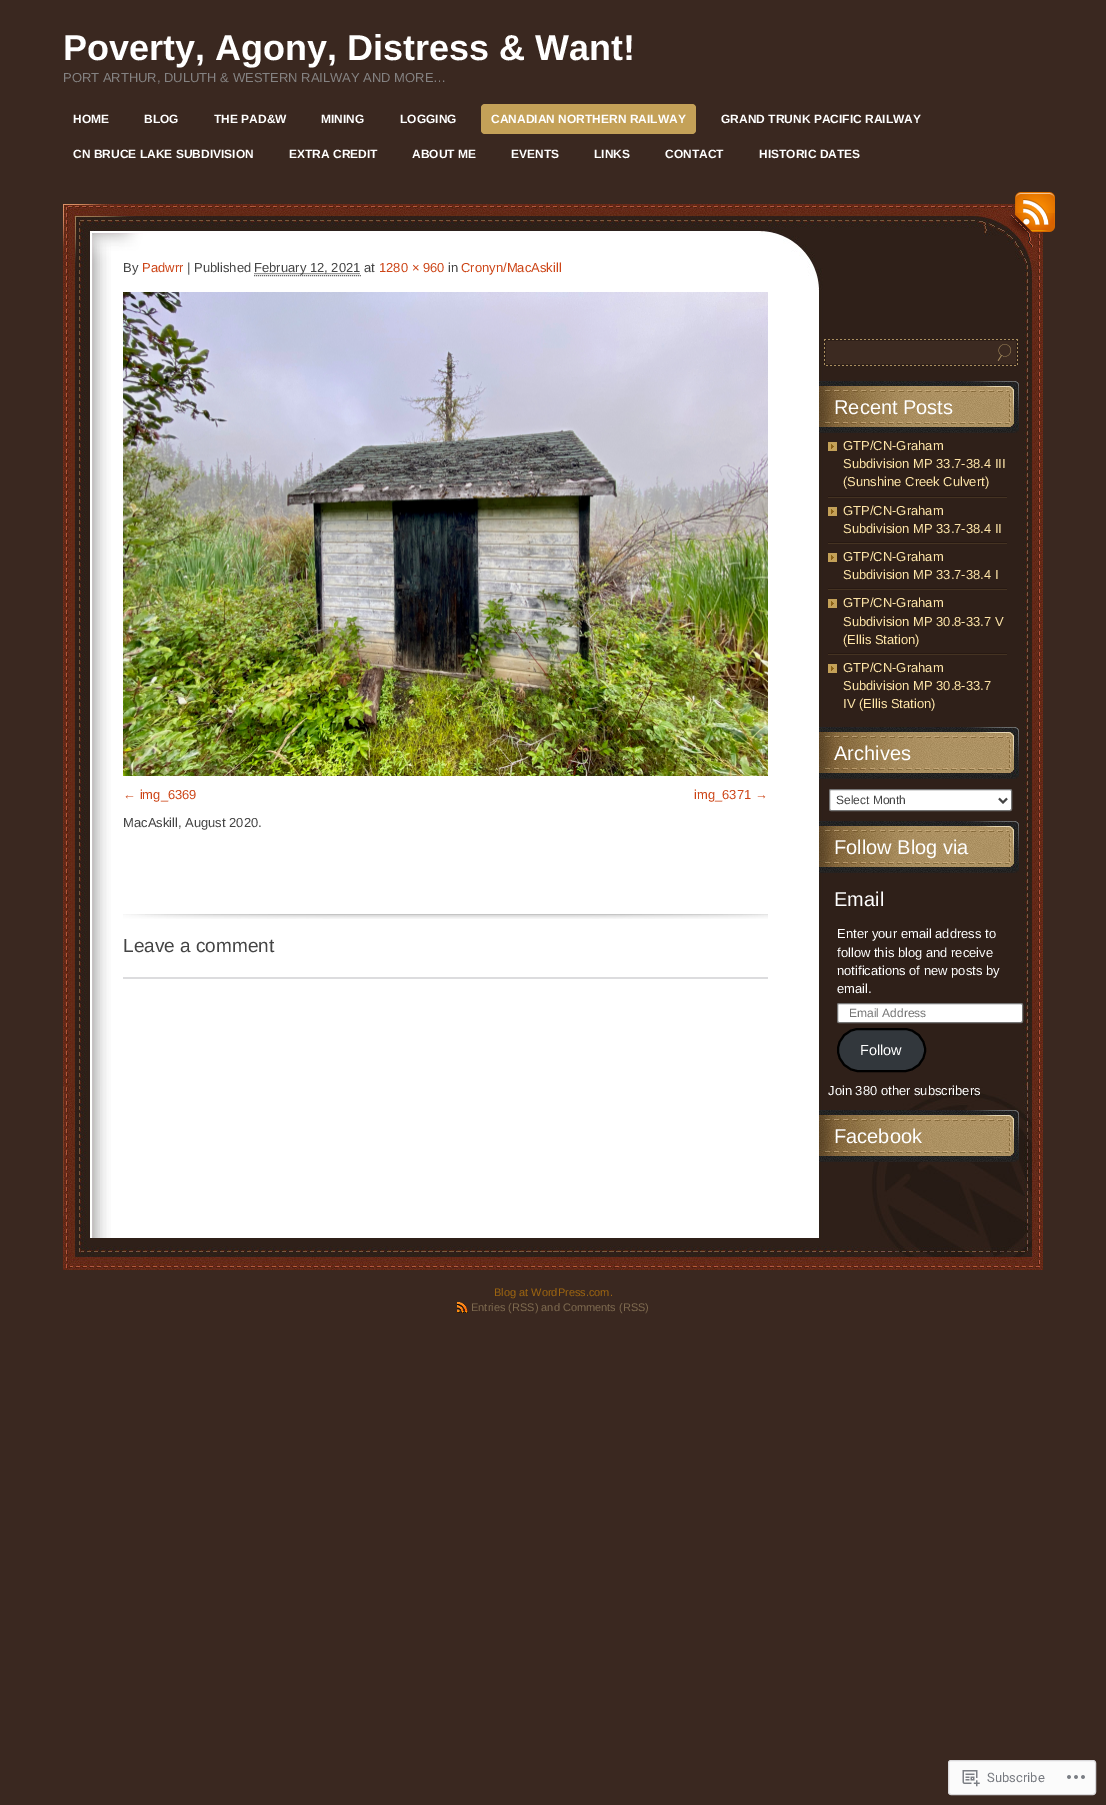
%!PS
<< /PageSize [1106 1805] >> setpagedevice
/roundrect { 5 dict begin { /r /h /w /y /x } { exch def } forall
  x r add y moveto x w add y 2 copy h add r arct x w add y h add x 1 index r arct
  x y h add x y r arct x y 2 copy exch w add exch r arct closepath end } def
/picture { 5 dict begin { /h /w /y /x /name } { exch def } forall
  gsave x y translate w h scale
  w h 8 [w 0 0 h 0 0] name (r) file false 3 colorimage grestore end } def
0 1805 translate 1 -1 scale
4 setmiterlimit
0.227 0.157 0.125 setrgbcolor
0 0 1106 1805 rectfill
/LiberationSans-Bold [36 0 0 -36 0 0] selectfont
1 setgray
63 60 moveto (Poverty, Agony, Distress & Want!) show
/LiberationSans-Regular [13 0 0 -13 0 0] selectfont
0.518 0.51 0.51 setrgbcolor
63 82 moveto (PORT ARTHUR, DULUTH & WESTERN RAILWAY AND MORE…) show
/LiberationSans-Bold [12 0 0 -12 0 0] selectfont
1 setgray
73 123 moveto (HOME) show
144 123 moveto (BLOG) show
214 123 moveto (THE PAD&W) show
321 123 moveto (MINING) show
400 123 moveto (LOGGING) show
0.769 0.631 0.345 setrgbcolor
481 104 215 30 4 roundrect fill
1 setgray
491 123 moveto (CANADIAN NORTHERN RAILWAY) show
721 123 moveto (GRAND TRUNK PACIFIC RAILWAY) show
73 158 moveto (CN BRUCE LAKE SUBDIVISION) show
289 158 moveto (EXTRA CREDIT) show
412 158 moveto (ABOUT ME) show
511 158 moveto (EVENTS) show
594 158 moveto (LINKS) show
665 158 moveto (CONTACT) show
759 158 moveto (HISTORIC DATES) show
(img1.rgb) 63 290 980 796 picture
(img3.rgb) 63 204 980 86 picture
(img2.rgb) 1005 192 50 55 picture
(img4.rgb) 63 1086 980 184 picture
(img5.rgb) 123 914 645 5 picture
/LiberationSans-Regular [13 0 0 -13 0 0] selectfont
0.267 setgray
123 272 moveto (By) show
0.804 0.271 0.09 setrgbcolor
142 272 moveto (Padwrr) show
0.267 setgray
187 272 moveto (| Published) show
[1 1] 0 setdash
newpath 254.5 273.5 moveto 360.5 273.5 lineto stroke
254 272 moveto (February 12, 2021 at) show
0.4 setgray
newpath 254 275.5 moveto 361 275.5 lineto stroke
0.804 0.271 0.09 setrgbcolor
379 272 moveto (1280 × 960) show
0.267 setgray
448 272 moveto (in) show
0.804 0.271 0.09 setrgbcolor
461 272 moveto (Cronyn/MacAskill) show
(img6.rgb) 123 292 645 484 picture
123 799 moveto (← img_6369) show
694 799 moveto (img_6371 →) show
0.267 setgray
123 827 moveto (MacAskill, August 2020.) show
/LiberationSans-Regular [19 0 0 -19 0 0] selectfont
123 952 moveto (Leave a comment) show
0.863 0.863 0.871 setrgbcolor
123 977 645 2 rectfill
(img7.rgb) 824 339 194 27 picture
(img8.rgb) 819 381 200 52 picture
/LiberationSans-Regular [20 0 0 -20 0 0] selectfont
1 setgray
834 414 moveto (Recent Posts) show
(img9.rgb) 828 442 9 9 picture
0.153 0.098 0.075 setrgbcolor
828 496 179 1 rectfill
/LiberationSans-Regular [13 0 0 -13 0 0] selectfont
1 0.902 0.659 setrgbcolor
843 450 moveto (GTP/CN-Graham) show
843 468 moveto (Subdivision MP 33.7-38.4 III) show
843 486 moveto (\(Sunshine Creek Culvert\)) show
(img9.rgb) 828 507 9 9 picture
0.271 0.2 0.133 setrgbcolor
828 497 179 1 rectfill
0.153 0.098 0.075 setrgbcolor
828 542 179 1 rectfill
1 0.902 0.659 setrgbcolor
843 515 moveto (GTP/CN-Graham) show
843 533 moveto (Subdivision MP 33.7-38.4 II) show
(img9.rgb) 828 553 9 9 picture
0.271 0.2 0.133 setrgbcolor
828 543 179 1 rectfill
0.153 0.098 0.075 setrgbcolor
828 588 179 1 rectfill
1 0.902 0.659 setrgbcolor
843 561 moveto (GTP/CN-Graham) show
843 579 moveto (Subdivision MP 33.7-38.4 I) show
(img9.rgb) 828 599 9 9 picture
0.271 0.2 0.133 setrgbcolor
828 589 179 1 rectfill
0.153 0.098 0.075 setrgbcolor
828 653 179 1 rectfill
1 0.902 0.659 setrgbcolor
843 607 moveto (GTP/CN-Graham) show
843 626 moveto (Subdivision MP 30.8-33.7 V) show
843 644 moveto (\(Ellis Station\)) show
(img9.rgb) 828 664 9 9 picture
0.271 0.2 0.133 setrgbcolor
828 654 179 1 rectfill
1 0.902 0.659 setrgbcolor
843 672 moveto (GTP/CN-Graham) show
843 690 moveto (Subdivision MP 30.8-33.7) show
843 708 moveto (IV \(Ellis Station\)) show
(img8.rgb) 819 727 200 52 picture
/LiberationSans-Regular [20 0 0 -20 0 0] selectfont
1 setgray
834 760 moveto (Archives) show
829.5 789.5 182 21 1.5 roundrect gsave fill grestore
0.463 setgray
[] 0 setdash
stroke
0.267 setgray
2 setlinewidth
newpath 999 798.5 moveto 1003 802.5 lineto 1007 798.5 lineto stroke
/LiberationSans-Regular [12 0 0 -12 0 0] selectfont
836 804 moveto (Select Month) show
(img8.rgb) 819 821 200 52 picture
/LiberationSans-Regular [20 0 0 -20 0 0] selectfont
1 setgray
834 854 moveto (Follow Blog via) show
834 906 moveto (Email) show
/LiberationSans-Regular [13 0 0 -13 0 0] selectfont
837 938 moveto (Enter your email address to) show
837 957 moveto (follow this blog and receive) show
837 975 moveto (notifications of new posts by) show
837 993 moveto (email.) show
837.5 1003.5 185 19 1.5 roundrect gsave fill grestore
0.463 setgray
1 setlinewidth
stroke
/LiberationSans-Regular [12 0 0 -12 0 0] selectfont
0.459 setgray
849 1017 moveto (Email Address) show
0.196 0.216 0.235 setrgbcolor
838 1029 87 42 21 roundrect gsave fill grestore
0 setgray
2 setlinewidth
stroke
/LiberationSans-Regular [14.5 0 0 -14.5 0 0] selectfont
1 setgray
860 1055 moveto (Follow) show
/LiberationSans-Regular [13 0 0 -13 0 0] selectfont
828 1095 moveto (Join 380 other subscribers) show
(img8.rgb) 819 1110 200 52 picture
/LiberationSans-Regular [20 0 0 -20 0 0] selectfont
834 1143 moveto (Facebook) show
/LiberationSans-Regular [11 0 0 -11 0 0] selectfont
0.616 0.396 0.063 setrgbcolor
494 1296 moveto (Blog at WordPress.com.) show
(img10.rgb) 457 1302 11 11 picture
0.494 0.416 0.31 setrgbcolor
471 1311 moveto (Entries \(RSS\) and Comments \(RSS\)) show
0.984 setgray
948.5 1760.5 147 34 2.5 roundrect gsave fill grestore
0.851 0.847 0.855 setrgbcolor
1 setlinewidth
stroke
(img11.rgb) 962 1770 18 17 picture
/Roboto-Regular [13 0 0 -13 0 0] selectfont
0.467 0.478 0.502 setrgbcolor
987 1782 moveto (Subscribe) show
(img12.rgb) 1067 1775 18 4 picture
showpage
